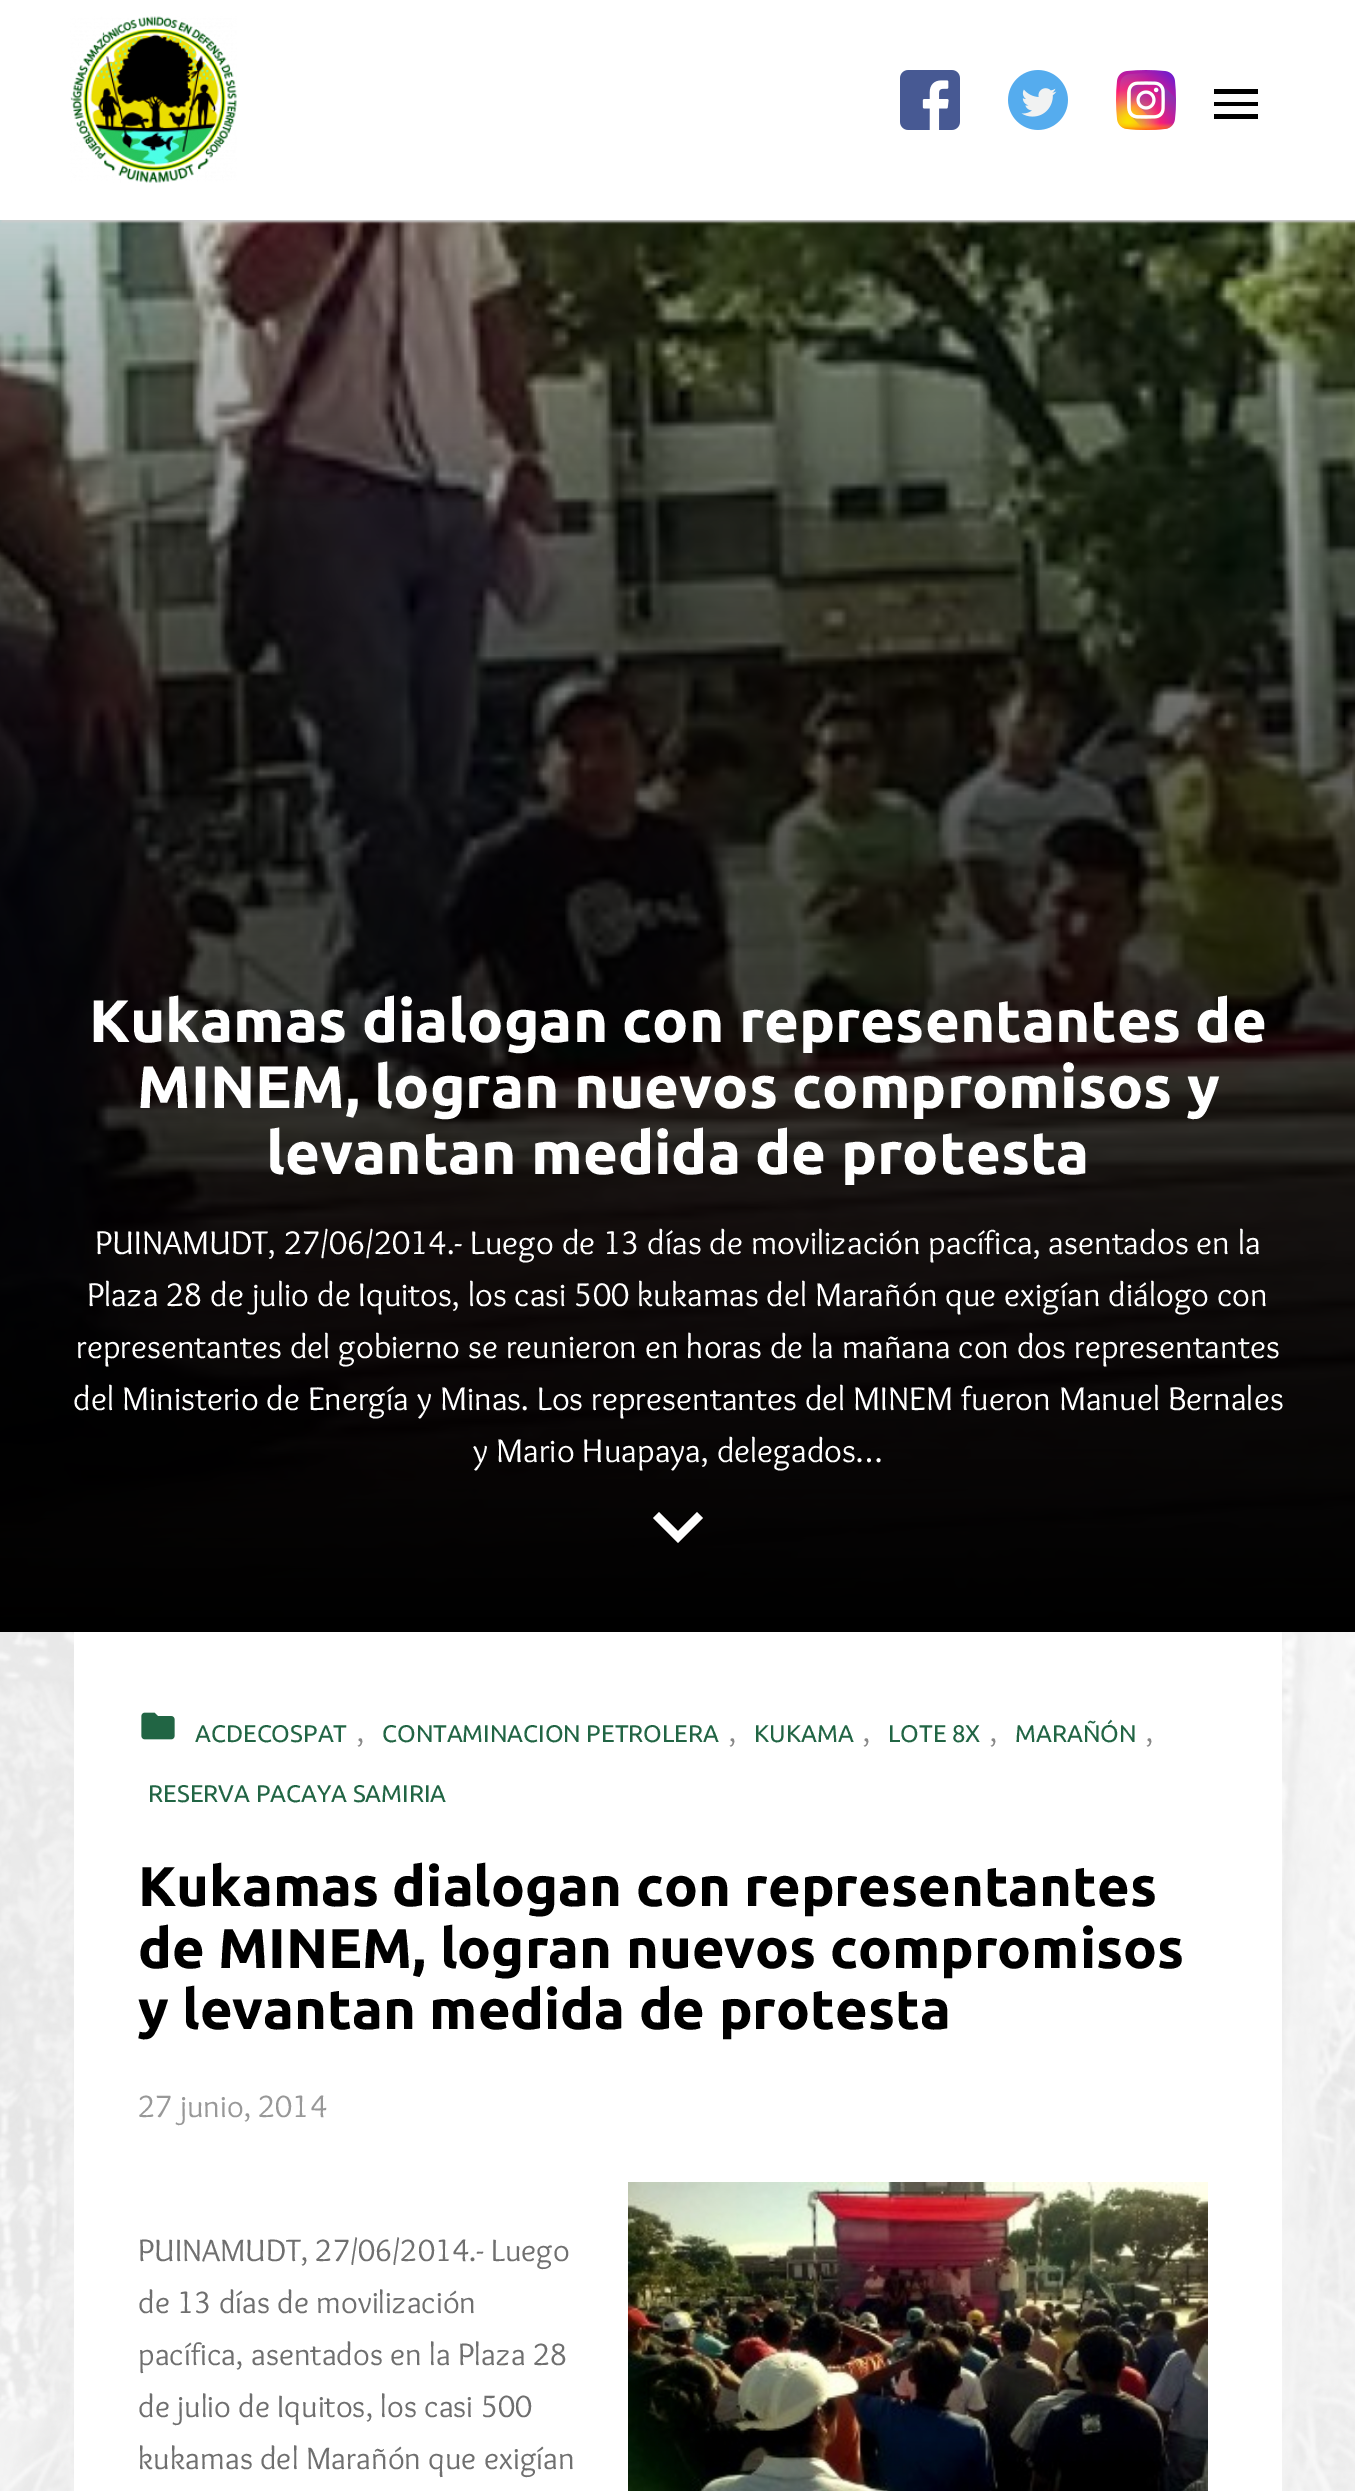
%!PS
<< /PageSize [1355 2491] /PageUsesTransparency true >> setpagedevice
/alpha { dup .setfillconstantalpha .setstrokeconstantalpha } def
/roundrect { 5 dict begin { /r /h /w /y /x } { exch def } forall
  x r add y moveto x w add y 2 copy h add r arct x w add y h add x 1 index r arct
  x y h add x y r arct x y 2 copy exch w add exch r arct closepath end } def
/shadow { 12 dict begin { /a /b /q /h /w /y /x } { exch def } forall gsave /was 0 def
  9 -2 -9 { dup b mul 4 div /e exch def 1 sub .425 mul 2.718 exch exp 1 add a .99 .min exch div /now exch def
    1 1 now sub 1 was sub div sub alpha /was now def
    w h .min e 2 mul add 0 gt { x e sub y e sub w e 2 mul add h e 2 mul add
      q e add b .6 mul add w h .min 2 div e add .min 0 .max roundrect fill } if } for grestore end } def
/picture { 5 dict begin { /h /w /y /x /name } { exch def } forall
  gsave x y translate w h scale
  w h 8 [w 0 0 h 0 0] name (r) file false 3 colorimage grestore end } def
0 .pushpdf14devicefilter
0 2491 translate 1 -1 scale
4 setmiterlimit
1 setgray
0 0 1355 2491 rectfill
(img6.rgb) 0 220 1355 1412 picture
0.8 setgray
2 2 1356 220 0 1 1 shadow
1 setgray
0 0 1355 220 rectfill
(img1.rgb) 70 16 167 167 picture
(img2.rgb) 900 70 60 60 picture
(img3.rgb) 1008 70 60 60 picture
(img4.rgb) 1116 70 60 60 picture
0 setgray
newpath 1214 89 moveto 1258 89 lineto 1258 94 lineto 1214 94 lineto closepath 1214 106 moveto 1214 102 lineto 1258 102 lineto 1258 106 lineto closepath 1214 119 moveto 1214 114 lineto 1258 114 lineto 1258 119 lineto closepath fill
(img5.rgb) 0 1632 1355 859 picture
/Ubuntu-Bold [60 0 0 -60 0 0] selectfont
1 setgray
89 1042 moveto (Kukamas dialogan con representantes de) show
137 1108 moveto (MINEM, logran nuevos compromisos y) show
266 1174 moveto (levantan medida de protesta) show
/Overlock-Regular [34 0 0 -34 0 0] selectfont
95 1254 moveto (PUINAMUDT, 27/06/2014.- Luego de 13 días de movilización pacífica, asentados en la) show
87 1306 moveto (Plaza 28 de julio de Iquitos, los casi 500 kukamas del Marañón que exigían diálogo con) show
76 1358 moveto (representantes del gobierno se reunieron en horas de la mañana con dos representantes) show
73 1410 moveto (del Ministerio de Energía y Minas. Los representantes del MINEM fueron Manuel Bernales) show
473 1462 moveto (y Mario Huapaya, delegados…) show
newpath 659 1512 moveto 678 1531 lineto 697 1512 lineto 703 1518 lineto 678 1543 lineto 653 1518 lineto closepath fill
74 1632 1208 859 rectfill
(img7.rgb) 141 1712 34 28 picture
/Ubuntu-Regular [24 0 0 -24 0 0] selectfont
0.129 0.396 0.267 setrgbcolor
195 1742 moveto (ACDECOSPAT) show
/Overlock-Regular [32 0 0 -32 0 0] selectfont
0.533 setgray
357 1742 moveto (,) show
/Ubuntu-Regular [24 0 0 -24 0 0] selectfont
0.129 0.396 0.267 setrgbcolor
382 1742 moveto (CONTAMINACION PETROLERA) show
/Overlock-Regular [32 0 0 -32 0 0] selectfont
0.533 setgray
729 1742 moveto (,) show
/Ubuntu-Regular [24 0 0 -24 0 0] selectfont
0.129 0.396 0.267 setrgbcolor
754 1742 moveto (KUKAMA) show
/Overlock-Regular [32 0 0 -32 0 0] selectfont
0.533 setgray
863 1742 moveto (,) show
/Ubuntu-Regular [24 0 0 -24 0 0] selectfont
0.129 0.396 0.267 setrgbcolor
888 1742 moveto (LOTE 8X) show
/Overlock-Regular [32 0 0 -32 0 0] selectfont
0.533 setgray
990 1742 moveto (,) show
/Ubuntu-Regular [24 0 0 -24 0 0] selectfont
0.129 0.396 0.267 setrgbcolor
1015 1742 moveto (MARAÑÓN) show
/Overlock-Regular [32 0 0 -32 0 0] selectfont
0.533 setgray
1146 1742 moveto (,) show
/Ubuntu-Regular [24 0 0 -24 0 0] selectfont
0.129 0.396 0.267 setrgbcolor
148 1802 moveto (RESERVA PACAYA SAMIRIA) show
/Ubuntu-Bold [56 0 0 -56 0 0] selectfont
0 setgray
138 1906 moveto (Kukamas dialogan con representantes) show
138 1968 moveto (de MINEM, logran nuevos compromisos) show
138 2029 moveto (y levantan medida de protesta) show
/Overlock-Regular [32 0 0 -32 0 0] selectfont
0.596 setgray
138 2117 moveto (27 junio, 2014) show
0.435 setgray
138 2261 moveto (PUINAMUDT, 27/06/2014.- Luego) show
(img8.rgb) 628 2182 580 309 picture
138 2313 moveto (de 13 días de movilización) show
138 2365 moveto (pacífica, asentados en la Plaza 28) show
138 2417 moveto (de julio de Iquitos, los casi 500) show
138 2469 moveto (kukamas del Marañón que exigían) show
.poppdf14devicefilter showpage
